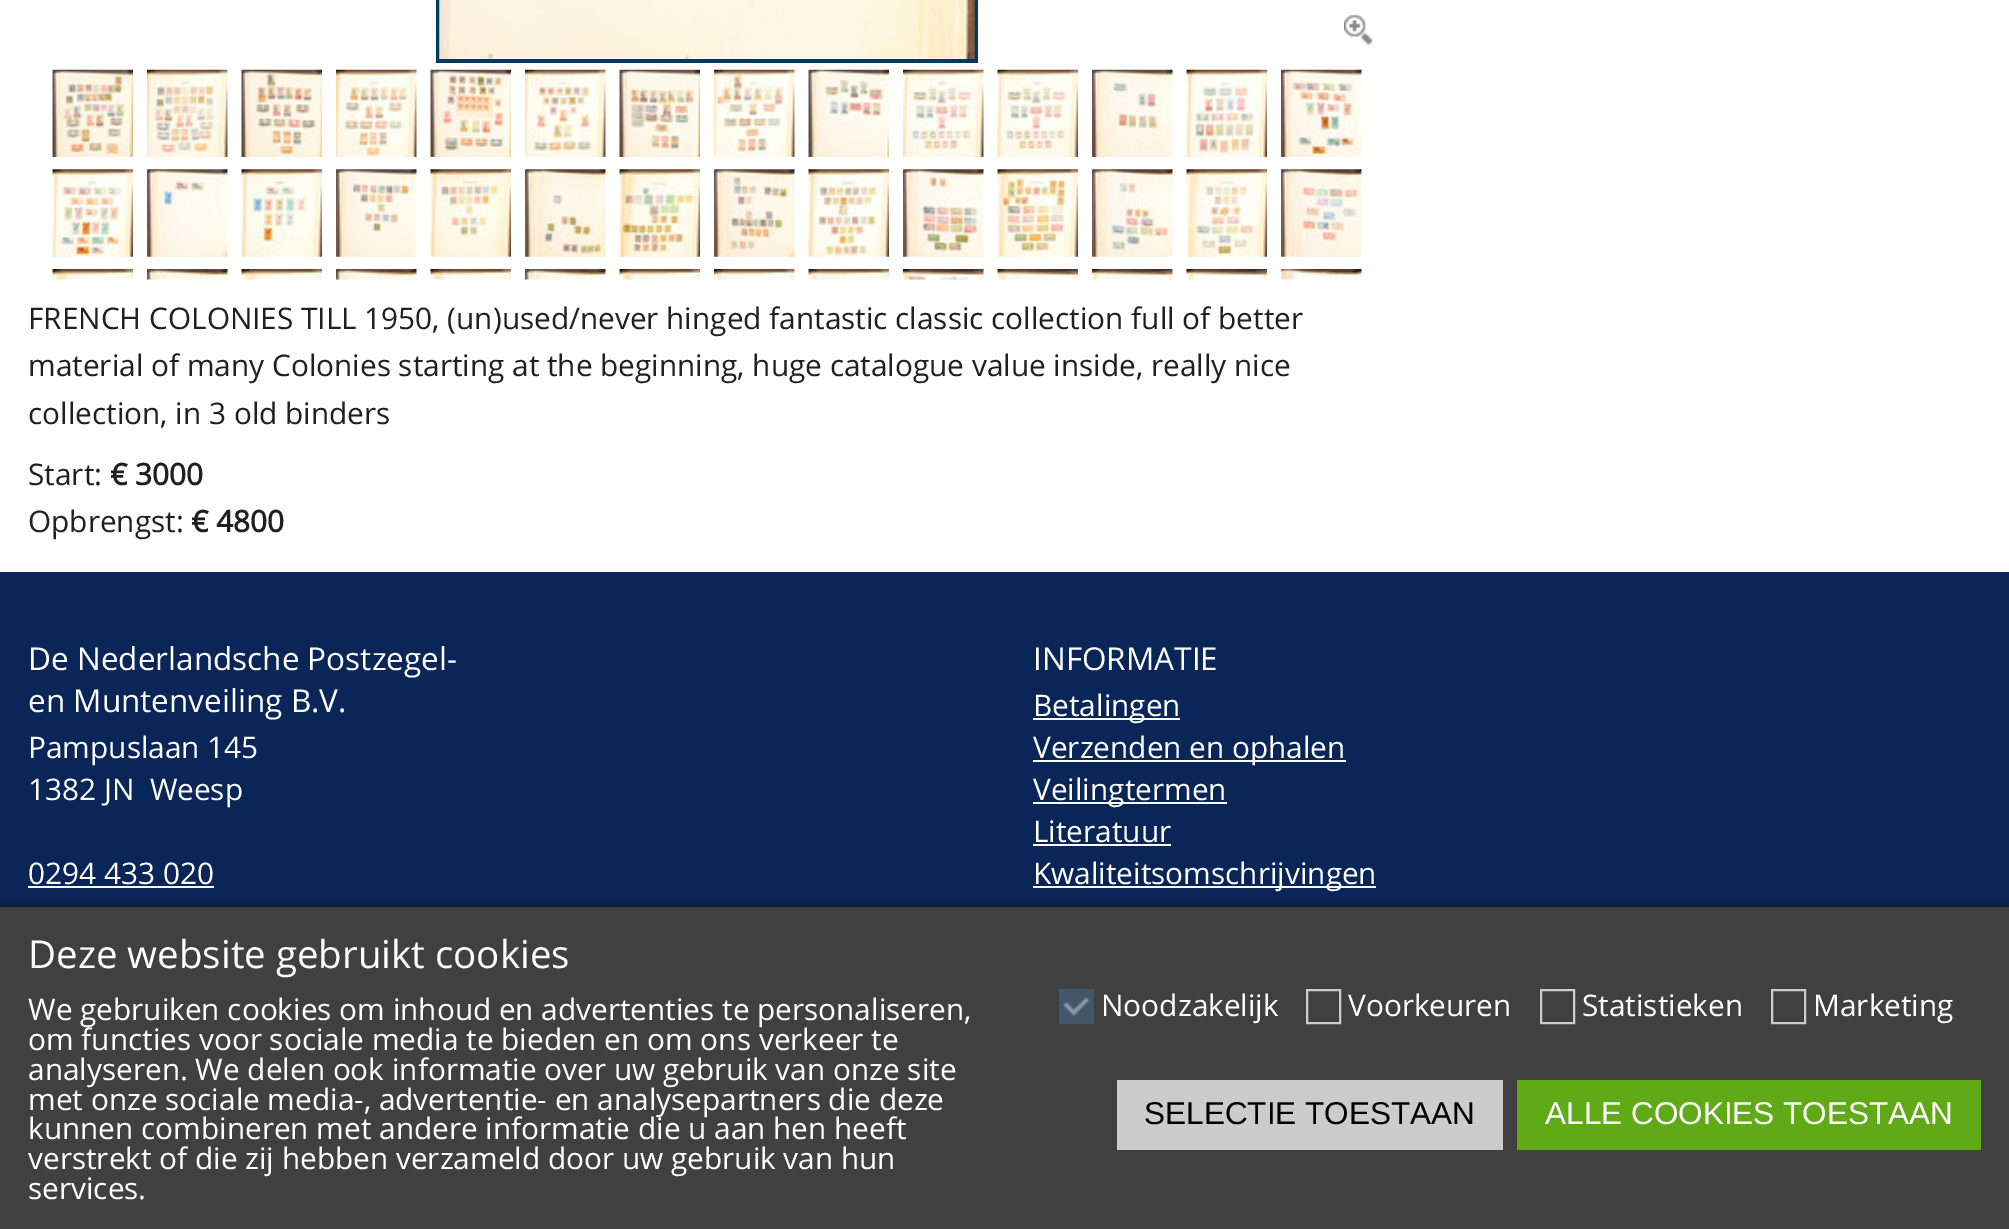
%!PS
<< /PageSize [2009 1229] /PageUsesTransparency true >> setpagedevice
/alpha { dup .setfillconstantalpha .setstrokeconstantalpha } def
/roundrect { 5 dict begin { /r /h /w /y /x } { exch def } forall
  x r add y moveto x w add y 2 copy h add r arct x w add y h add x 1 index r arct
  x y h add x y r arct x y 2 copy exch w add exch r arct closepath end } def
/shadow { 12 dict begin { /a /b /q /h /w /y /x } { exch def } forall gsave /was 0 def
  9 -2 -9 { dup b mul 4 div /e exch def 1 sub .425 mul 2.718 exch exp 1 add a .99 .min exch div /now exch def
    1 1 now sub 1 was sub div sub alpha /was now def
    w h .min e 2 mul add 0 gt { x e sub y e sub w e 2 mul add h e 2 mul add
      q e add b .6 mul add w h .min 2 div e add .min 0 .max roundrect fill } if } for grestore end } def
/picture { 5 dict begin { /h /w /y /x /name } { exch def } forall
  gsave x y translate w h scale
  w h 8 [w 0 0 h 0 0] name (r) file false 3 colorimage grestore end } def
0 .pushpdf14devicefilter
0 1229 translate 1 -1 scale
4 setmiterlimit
1 setgray
0 0 2009 1229 rectfill
0 0.227 0.376 setrgbcolor
436 0 542 63 rectfill
(img1.rgb) 439 0 536 59 picture
(img2.rgb) 1344 14 28 32 picture
(img3.rgb) 52 69 81 88 picture
(img4.rgb) 147 69 81 88 picture
(img5.rgb) 241 69 81 88 picture
(img6.rgb) 336 69 81 88 picture
(img7.rgb) 430 69 81 88 picture
(img8.rgb) 525 69 81 88 picture
(img9.rgb) 619 69 81 88 picture
(img10.rgb) 714 69 81 88 picture
(img11.rgb) 808 69 81 88 picture
(img12.rgb) 903 69 81 88 picture
(img13.rgb) 997 69 81 88 picture
(img14.rgb) 1092 69 81 88 picture
(img15.rgb) 1186 69 81 88 picture
(img16.rgb) 1281 69 81 88 picture
(img17.rgb) 52 169 81 88 picture
(img18.rgb) 147 169 81 88 picture
(img19.rgb) 241 169 81 88 picture
(img20.rgb) 336 169 81 88 picture
(img21.rgb) 430 169 81 88 picture
(img22.rgb) 525 169 81 88 picture
(img23.rgb) 619 169 81 88 picture
(img24.rgb) 714 169 81 88 picture
(img25.rgb) 808 169 81 88 picture
(img26.rgb) 903 169 81 88 picture
(img27.rgb) 997 169 81 88 picture
(img28.rgb) 1092 169 81 88 picture
(img29.rgb) 1186 169 81 88 picture
(img30.rgb) 1281 169 81 88 picture
(img31.rgb) 52 269 81 11 picture
(img32.rgb) 147 269 81 11 picture
(img33.rgb) 241 269 81 11 picture
(img34.rgb) 336 269 81 11 picture
(img35.rgb) 430 269 81 11 picture
(img36.rgb) 525 269 81 11 picture
(img37.rgb) 619 269 81 11 picture
(img38.rgb) 714 269 81 11 picture
(img39.rgb) 808 269 81 11 picture
(img40.rgb) 903 269 81 11 picture
(img41.rgb) 997 269 81 11 picture
(img42.rgb) 1092 269 81 11 picture
(img43.rgb) 1186 269 81 11 picture
(img44.rgb) 1281 269 81 11 picture
/OpenSans-Regular [29.75 0 0 -29.75 0 0] selectfont
0.125 setgray
28 329 moveto (FRENCH COLONIES TILL 1950, \(un\)used/never hinged fantastic classic collection full of better) show
28 376 moveto (material of many Colonies starting at the beginning, huge catalogue value inside, really nice) show
28 424 moveto (collection, in 3 old binders) show
28 485 moveto (Start:) show
/OpenSans-Bold [29.75 0 0 -29.75 0 0] selectfont
110 485 moveto (€ 3000) show
/OpenSans-Regular [29.75 0 0 -29.75 0 0] selectfont
28 532 moveto (Opbrengst:) show
/OpenSans-Bold [29.75 0 0 -29.75 0 0] selectfont
191 532 moveto (€ 4800) show
0.039 0.145 0.345 setrgbcolor
0 572 2009 335 rectfill
/OpenSans-Regular [31.5 0 0 -31.5 0 0] selectfont
1 setgray
28 670 moveto (De Nederlandsche Postzegel-) show
28 712 moveto (en Muntenveiling B.V.) show
/OpenSans-Regular [29.75 0 0 -29.75 0 0] selectfont
28 758 moveto (Pampuslaan 145) show
28 800 moveto (1382 JN  Weesp) show
28 884 moveto (0294 433 020) show
28 886 186 2 rectfill
/OpenSans-Regular [31.5 0 0 -31.5 0 0] selectfont
1033 670 moveto (INFORMATIE) show
1033 718 147 2 rectfill
/OpenSans-Regular [29.75 0 0 -29.75 0 0] selectfont
1033 716 moveto (Betalingen) show
1033 760 313 2 rectfill
1033 758 moveto (Verzenden en ophalen) show
1033 802 194 2 rectfill
1033 800 moveto (Veilingtermen) show
1033 842 moveto (Literatuur) show
1033 844 138 2 rectfill
1033 886 343 2 rectfill
1033 884 moveto (Kwaliteitsomschrijvingen) show
0 setgray
0 903 2009 324 0 5 0.3 shadow
0.251 setgray
0 907 2009 322 rectfill
/OpenSans-Regular [38.5 0 0 -38.5 0 0] selectfont
1 setgray
28 968 moveto (Deze website gebruikt cookies) show
/OpenSans-Regular [29.75 0 0 -29.75 0 0] selectfont
28 1020 moveto (We gebruiken cookies om inhoud en advertenties te personaliseren,) show
28 1050 moveto (om functies voor sociale media te bieden en om ons verkeer te) show
28 1080 moveto (analyseren. We delen ook informatie over uw gebruik van onze site) show
28 1110 moveto (met onze sociale media-, advertentie- en analysepartners die deze) show
28 1139 moveto (kunnen combineren met andere informatie die u aan hen heeft) show
28 1169 moveto (verstrekt of die zij hebben verzameld door uw gebruik van hun) show
28 1199 moveto (services.) show
0.259 0.341 0.412 setrgbcolor
1059 989 35 35 rectfill
(img45.rgb) 1063 997 26 19 picture
1 setgray
1101 1016 moveto (Noodzakelijk) show
0.8 setgray
2 setlinewidth
1307 990 33 33 rectstroke
1 setgray
1348 1016 moveto (Voorkeuren) show
0.8 setgray
1541 990 33 33 rectstroke
1 setgray
1582 1016 moveto (Statistieken) show
0.8 setgray
1772 990 33 33 rectstroke
1 setgray
1813 1016 moveto (Marketing) show
0.8 setgray
1117 1080 386 70 rectfill
/LiberationSans-Regular [31.5 0 0 -31.5 0 0] selectfont
0 setgray
1144 1124 moveto (SELECTIE TOESTAAN) show
0.376 0.663 0.09 setrgbcolor
1517 1080 464 70 rectfill
1 setgray
1545 1124 moveto (ALLE COOKIES TOESTAAN) show
.poppdf14devicefilter showpage
